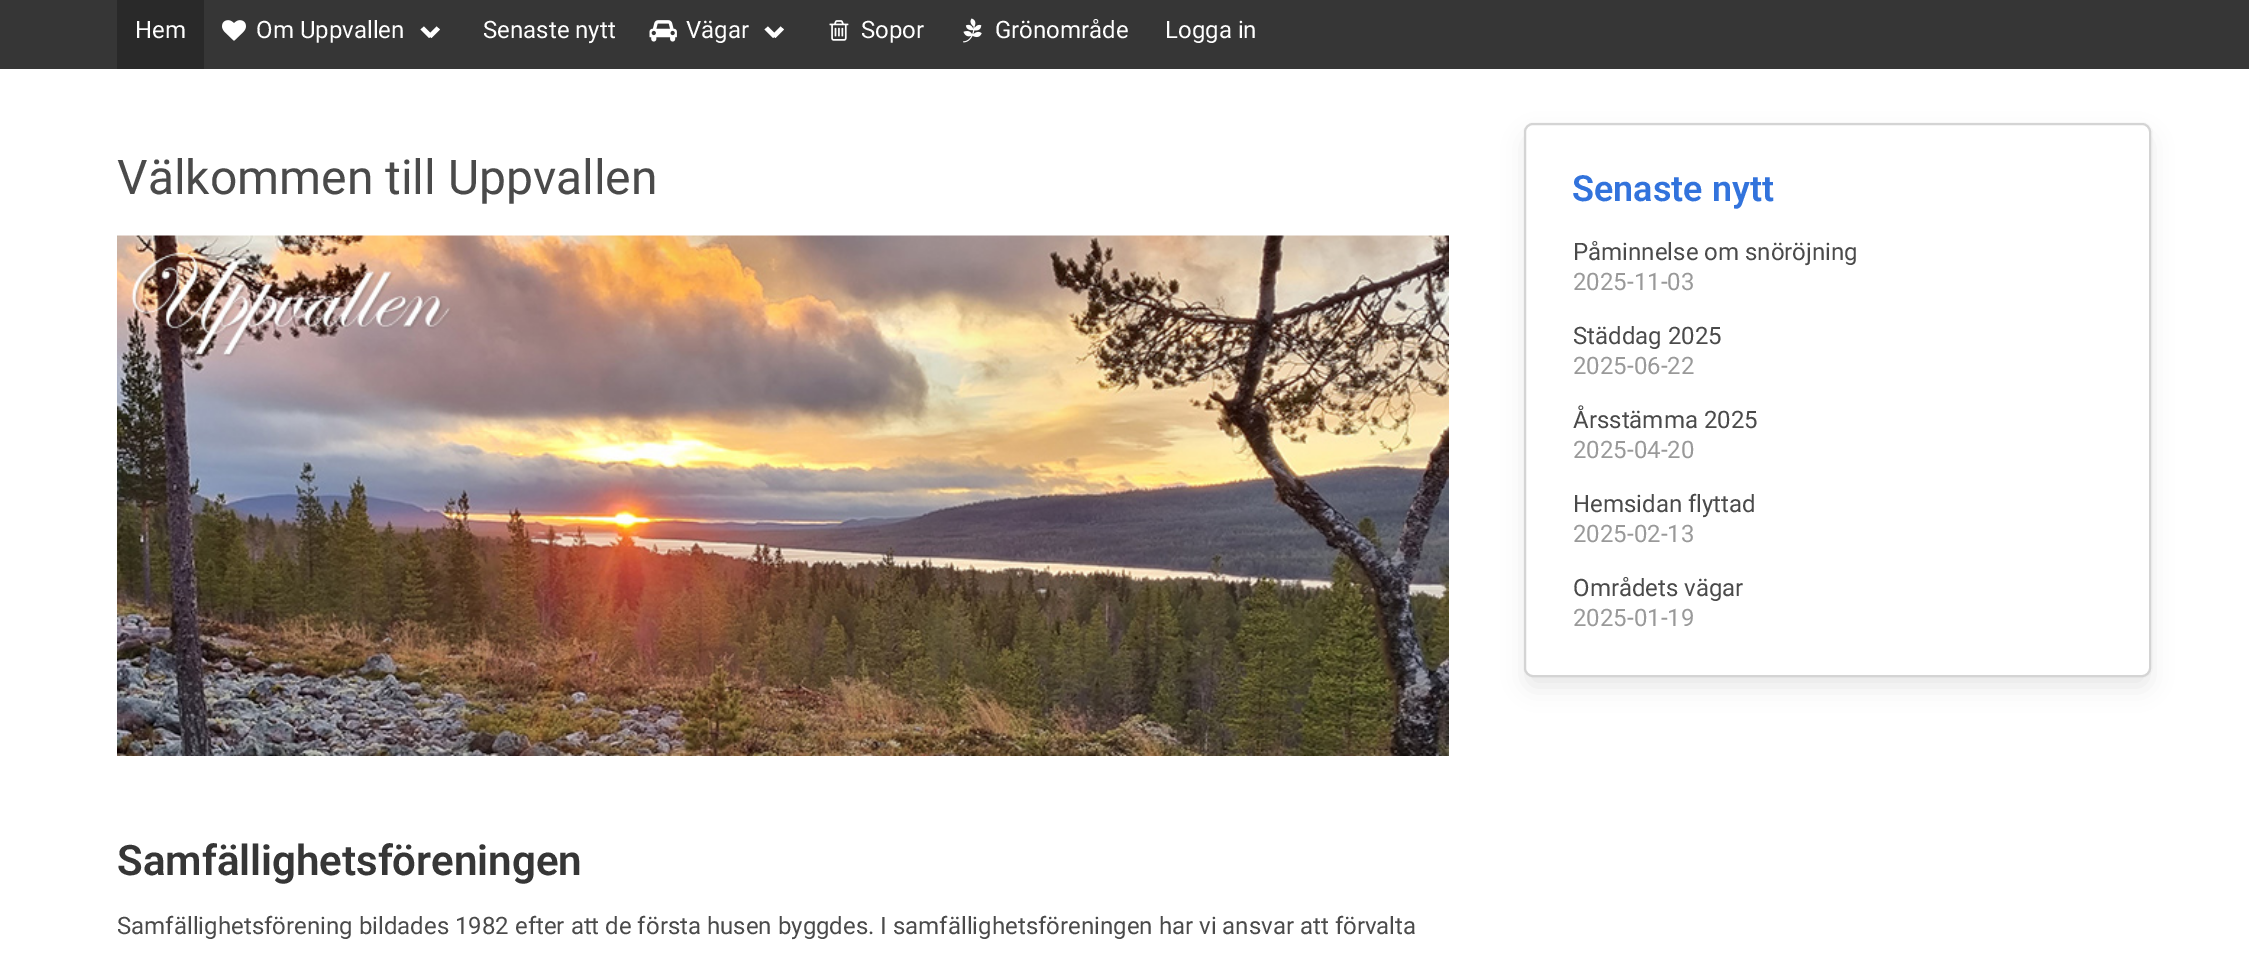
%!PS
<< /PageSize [2249 964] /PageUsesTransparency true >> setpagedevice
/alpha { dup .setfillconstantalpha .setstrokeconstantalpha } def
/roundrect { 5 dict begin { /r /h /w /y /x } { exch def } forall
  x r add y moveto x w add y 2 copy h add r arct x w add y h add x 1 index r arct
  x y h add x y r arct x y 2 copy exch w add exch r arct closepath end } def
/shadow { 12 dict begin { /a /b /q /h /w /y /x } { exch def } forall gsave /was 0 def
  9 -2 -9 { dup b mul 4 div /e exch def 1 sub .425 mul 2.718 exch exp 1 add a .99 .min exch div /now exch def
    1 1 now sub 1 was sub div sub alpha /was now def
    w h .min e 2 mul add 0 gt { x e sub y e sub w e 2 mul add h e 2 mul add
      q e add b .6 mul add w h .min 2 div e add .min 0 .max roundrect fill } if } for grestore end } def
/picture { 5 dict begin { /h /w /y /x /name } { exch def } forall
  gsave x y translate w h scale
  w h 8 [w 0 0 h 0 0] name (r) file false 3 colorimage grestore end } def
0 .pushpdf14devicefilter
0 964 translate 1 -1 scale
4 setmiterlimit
1 setgray
0 0 2249 964 rectfill
0.212 setgray
0 0 2249 69 rectfill
0.161 setgray
117 0 87 69 rectfill
/Roboto-Regular [24 0 0 -24 0 0] selectfont
1 setgray
135 38 moveto (Hem) show
(img1.rgb) 222 20 24 21 picture
256 38 moveto (Om Uppvallen) show
newpath 428 35 moveto 436.5 26.5 lineto 440 29.5 lineto 431.5 38 lineto closepath fill
newpath 420.5 29.5 moveto 424 26.5 lineto 432.5 35 lineto 429 38 lineto closepath fill
483 38 moveto (Senaste nytt) show
(img2.rgb) 649 20 28 22 picture
686 38 moveto (Vägar) show
newpath 772 35 moveto 780.5 26.5 lineto 784 29.5 lineto 775.5 38 lineto closepath fill
newpath 764.5 29.5 moveto 768 26.5 lineto 776.5 35 lineto 773 38 lineto closepath fill
(img3.rgb) 829 20 20 21 picture
861 38 moveto (Sopor) show
(img4.rgb) 963 18 19 25 picture
995 38 moveto (Grönområde) show
1165 38 moveto (Logga in) show
/Roboto-Regular [48 0 0 -48 0 0] selectfont
0.29 setgray
117 194 moveto (Välkommen till Uppvallen) show
(img5.rgb) 117 235 1332 521 picture
/Roboto-SemiBold [42 0 0 -42 0 0] selectfont
0.212 setgray
117 875 moveto (Samfällighetsföreningen) show
/Roboto-Regular [24 0 0 -24 0 0] selectfont
0.29 setgray
117 934 moveto (Samfällighetsförening bildades 1982 efter att de första husen byggdes. I samfällighetsföreningen har vi ansvar att förvalta) show
0.98 setgray
2 setlinewidth
1524 123 628 554 10 roundrect stroke
0.039 setgray
1527 138 621 548 6 12 0.1 shadow
1 setgray
1525 124 625 552 8 roundrect gsave fill grestore
0.831 setgray
stroke
/Roboto-SemiBold [36 0 0 -36 0 0] selectfont
0.196 0.451 0.863 setrgbcolor
1572 201 moveto (Senaste nytt) show
/Roboto-Regular [24 0 0 -24 0 0] selectfont
0.29 setgray
1573 260 moveto (Påminnelse om snöröjning) show
0.6 setgray
1573 290 moveto (2025-11-03) show
0.29 setgray
1573 344 moveto (Städdag 2025) show
0.6 setgray
1573 374 moveto (2025-06-22) show
0.29 setgray
1573 428 moveto (Årsstämma 2025) show
0.6 setgray
1573 458 moveto (2025-04-20) show
0.29 setgray
1573 512 moveto (Hemsidan flyttad) show
0.6 setgray
1573 542 moveto (2025-02-13) show
0.29 setgray
1573 596 moveto (Områdets vägar) show
0.6 setgray
1573 626 moveto (2025-01-19) show
.poppdf14devicefilter showpage
